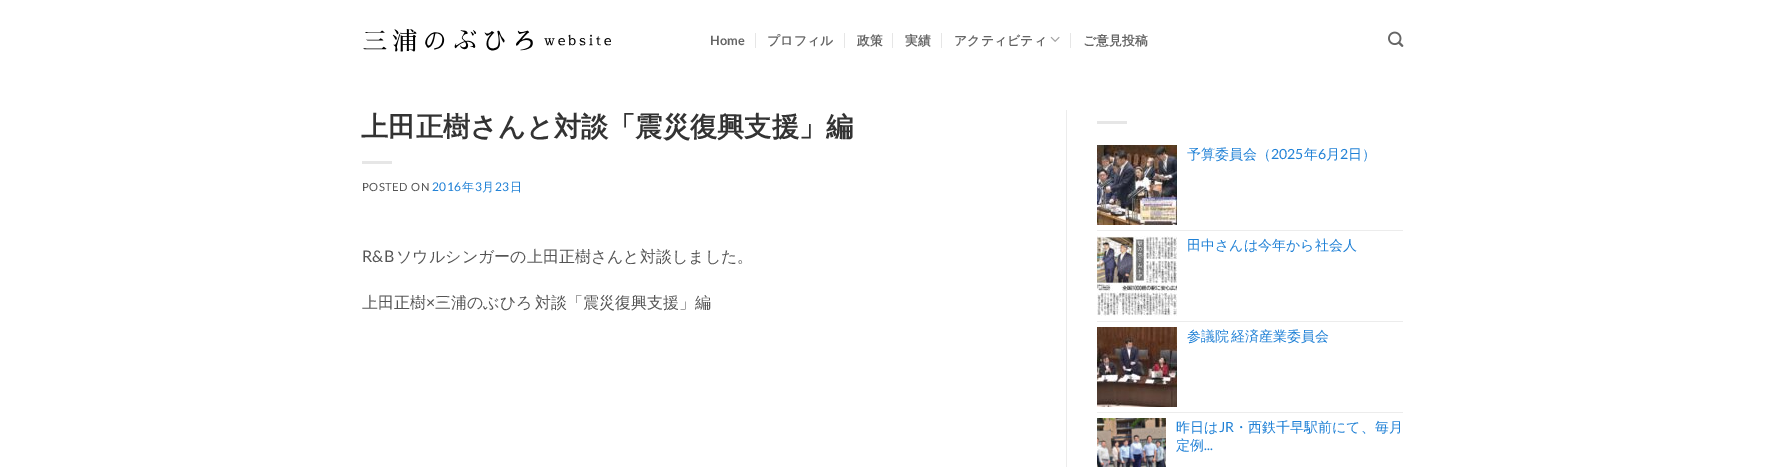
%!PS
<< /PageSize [1765 467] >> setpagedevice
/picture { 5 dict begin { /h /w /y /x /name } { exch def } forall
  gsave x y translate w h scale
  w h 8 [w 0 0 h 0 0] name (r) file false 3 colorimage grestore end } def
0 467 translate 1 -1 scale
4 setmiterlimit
1 setgray
0 0 1765 467 rectfill
(img1.rgb) 363 29 248 23 picture
/Lato-Bold [12.75 0 0 -12.75 0 0] selectfont
0.396 setgray
710 45 moveto 0.25 0 (Home) ashow
0.902 setgray
755 33 1 15 rectfill
/WenQuanYiZenHei-Bold [12.75 0 0 -12.75 0 0] selectfont
0.396 setgray
767 45 moveto 0.25 0 (プロフィル) ashow
0.902 setgray
844 33 1 15 rectfill
0.396 setgray
857 45 moveto 0.25 0 (政策) ashow
0.902 setgray
892 33 1 15 rectfill
0.396 setgray
905 45 moveto 0.25 0 (実績) ashow
0.902 setgray
941 33 1 15 rectfill
0.396 setgray
954 45 moveto 0.25 0 (アクティビティ) ashow
(img2.rgb) 1050 36 10 6 picture
0.902 setgray
1070 33 1 15 rectfill
0.396 setgray
1083 45 moveto 0.25 0 (ご意見投稿) ashow
(img3.rgb) 1388 31 16 16 picture
/WenQuanYiZenHei-Bold [27.25 0 0 -27.25 0 0] selectfont
0.2 setgray
361 136 moveto (上田正樹さんと対談「震災復興支援」編) show
0.902 setgray
362 161 30 3 rectfill
/Lato-Regular [11.25 0 0 -11.25 0 0] selectfont
0.333 setgray
362 191 moveto 0.5 0 (POSTED ON) ashow
/Lato-Regular [12 0 0 -12 0 0] selectfont
0.125 0.506 0.839 setrgbcolor
432 191 moveto 0.5 0 (2016) ashow
/WenQuanYiZenHei-Medium [12 0 0 -12 0 0] selectfont
462 191 moveto 0.5 0 (年) ashow
/Lato-Regular [12 0 0 -12 0 0] selectfont
475 191 moveto 0.5 0 (3) ashow
/WenQuanYiZenHei-Medium [12 0 0 -12 0 0] selectfont
482 191 moveto 0.5 0 (月) ashow
/Lato-Regular [12 0 0 -12 0 0] selectfont
495 191 moveto 0.5 0 (23) ashow
/WenQuanYiZenHei-Medium [12 0 0 -12 0 0] selectfont
510 191 moveto 0.5 0 (日) ashow
/Lato-Regular [16 0 0 -16 0 0] selectfont
0.333 setgray
362 262 moveto (R&B) show
/WenQuanYiZenHei-Medium [16 0 0 -16 0 0] selectfont
396 262 moveto (ソウルシンガーの上田正樹さんと対談しました。) show
362 308 moveto (上田正樹) show
/Lato-Regular [16 0 0 -16 0 0] selectfont
426 308 moveto (×) show
/WenQuanYiZenHei-Medium [16 0 0 -16 0 0] selectfont
435 308 moveto -2 0 32 (三浦のぶひろ 対談「震災復興支援」編) widthshow
0.925 setgray
1066 110 1 357 rectfill
0.902 setgray
1097 121 30 3 rectfill
(img4.rgb) 1097 145 80 80 picture
/WenQuanYiZenHei-Medium [14 0 0 -14 0 0] selectfont
0.125 0.506 0.839 setrgbcolor
1187 159 moveto (予算委員会（) show
/Lato-Regular [14 0 0 -14 0 0] selectfont
1271 159 moveto (2025) show
/WenQuanYiZenHei-Medium [14 0 0 -14 0 0] selectfont
1304 159 moveto (年) show
/Lato-Regular [14 0 0 -14 0 0] selectfont
1318 159 moveto (6) show
/WenQuanYiZenHei-Medium [14 0 0 -14 0 0] selectfont
1326 159 moveto (月) show
/Lato-Regular [14 0 0 -14 0 0] selectfont
1340 159 moveto (2) show
/WenQuanYiZenHei-Medium [14 0 0 -14 0 0] selectfont
1348 159 moveto (日）) show
0.925 setgray
1097 230 306 1 rectfill
(img5.rgb) 1097 236 80 80 picture
0.125 0.506 0.839 setrgbcolor
1187 250 moveto (田中さんは今年から社会人) show
0.925 setgray
1097 321 306 1 rectfill
(img6.rgb) 1097 327 80 80 picture
0.125 0.506 0.839 setrgbcolor
1187 341 moveto -2 0 32 (参議院 経済産業委員会) widthshow
0.925 setgray
1097 412 306 1 rectfill
(img7.rgb) 1097 418 69 49 picture
0.125 0.506 0.839 setrgbcolor
1176 432 moveto (昨日は) show
/Lato-Regular [14 0 0 -14 0 0] selectfont
1219 432 moveto (JR) show
/WenQuanYiZenHei-Medium [14 0 0 -14 0 0] selectfont
1234 432 moveto (・西鉄千早駅前にて、毎月) show
1176 450 moveto (定例) show
/Lato-Regular [14 0 0 -14 0 0] selectfont
1204 450 moveto (...) show
showpage
